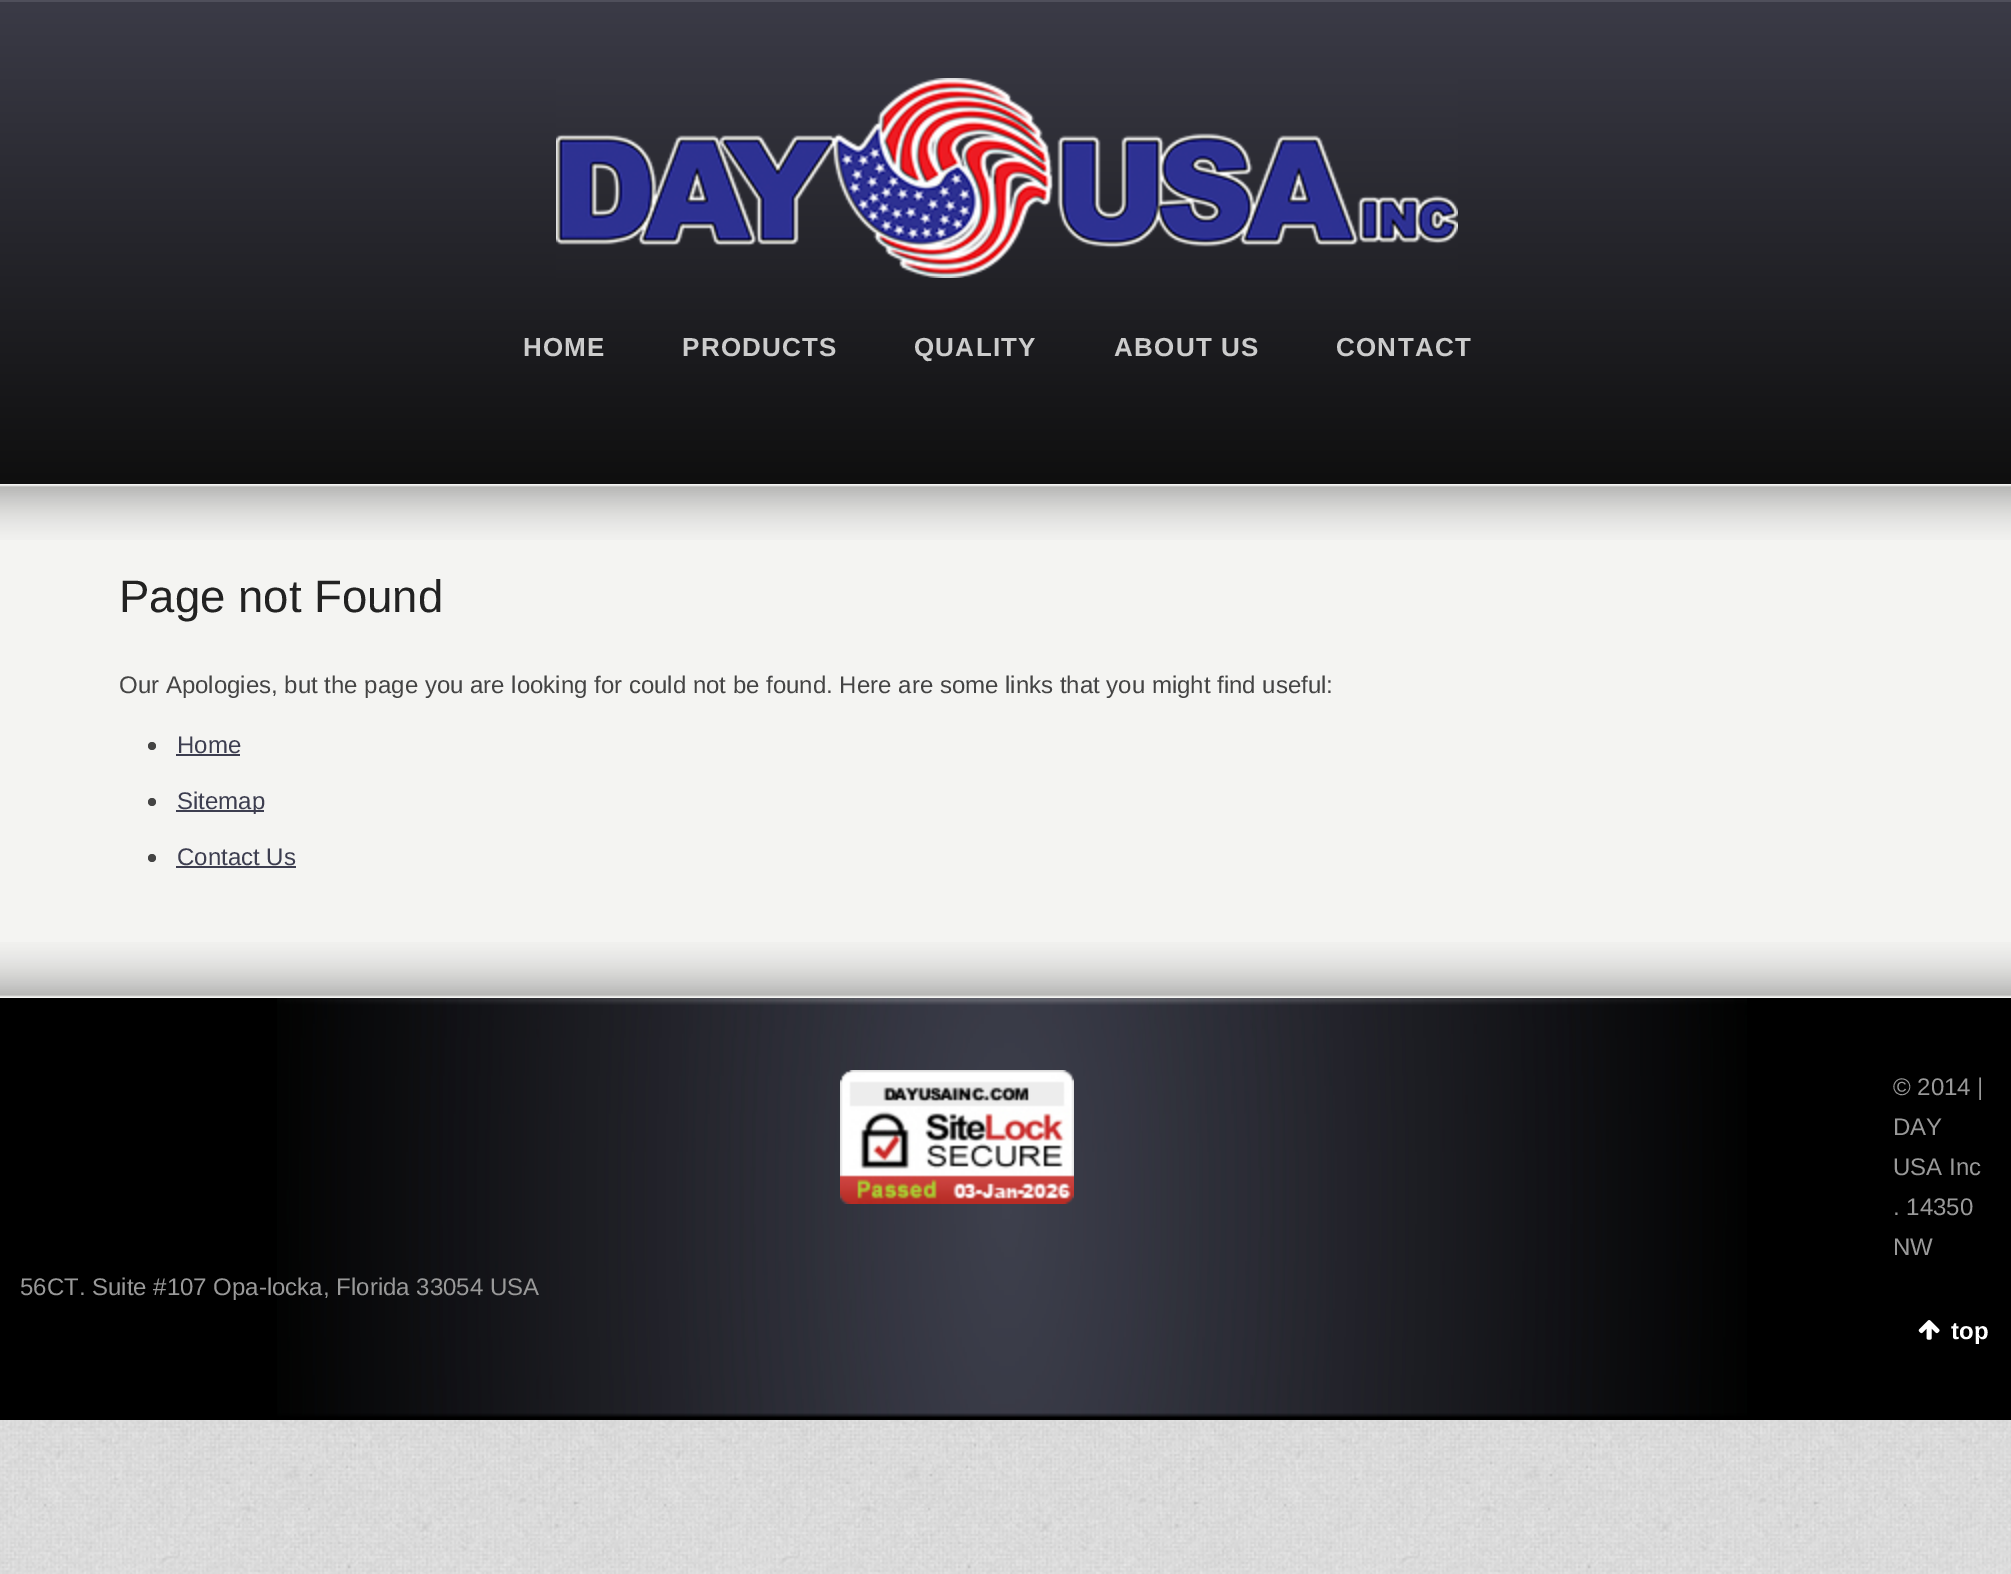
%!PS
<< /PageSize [2011 1574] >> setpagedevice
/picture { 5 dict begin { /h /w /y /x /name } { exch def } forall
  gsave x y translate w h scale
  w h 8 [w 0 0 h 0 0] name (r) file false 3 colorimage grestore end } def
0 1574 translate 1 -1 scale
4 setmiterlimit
1 setgray
0 0 2011 1574 rectfill
(img1.rgb) 0 1420 2011 154 picture
0.957 0.957 0.949 setrgbcolor
0 484 2011 514 rectfill
gsave newpath 0 2 moveto 2011 2 lineto 2011 484 lineto 0 484 lineto closepath clip newpath
<< /ShadingType 2 /ColorSpace /DeviceRGB /Coords [1006 2 1006 484] /Extend [true true] /Function << /FunctionType 2 /Domain [0 1] /C0 [0.231 0.231 0.278] /C1 [0.059 0.059 0.059] /N 1 >> >> shfill grestore
0.31 0.31 0.357 setrgbcolor
0 0 2011 2 rectfill
(img2.rgb) 556 78 902 200 picture
/LiberationSans-Bold [26 0 0 -26 0 0] selectfont
0.8 setgray
523 356 moveto 1.25 0 (HOME) ashow
682 356 moveto 1.25 0 (PRODUCTS) ashow
914 356 moveto 1.25 0 (QUALITY) ashow
1114 356 moveto 1.25 0 (ABOUT US) ashow
1336 356 moveto 1.25 0 (CONTACT) ashow
(img3.rgb) 0 485 2011 55 picture
/LiberationSans-Regular [45.5 0 0 -45.5 0 0] selectfont
0.133 setgray
119 612 moveto (Page not Found) show
/LiberationSans-Regular [24 0 0 -24 0 0] selectfont
0.267 setgray
119 693 moveto (Our Apologies, but the page you are looking for could not be found. Here are some links that you might find useful:) show
newpath 152 746 4 0 360 arc closepath fill
0.239 0.243 0.314 setrgbcolor
177 753 moveto (Home) show
176 754 64 2 rectfill
0.267 setgray
newpath 152 802 4 0 360 arc closepath fill
0.239 0.243 0.314 setrgbcolor
176 810 88 2 rectfill
177 809 moveto (Sitemap) show
0.267 setgray
newpath 152 858 4 0 360 arc closepath fill
0.239 0.243 0.314 setrgbcolor
177 865 moveto (Contact Us) show
176 866 120 2 rectfill
(img4.rgb) 0 942 2011 55 picture
0 setgray
0 998 2011 422 rectfill
(img5.rgb) 277 998 1470 419 picture
(img6.rgb) 840 1070 234 134 picture
0.6 setgray
1893 1095 moveto (© 2014 |) show
1893 1135 moveto (DAY) show
1893 1175 moveto (USA Inc) show
1893 1215 moveto (. 14350) show
1893 1255 moveto (NW) show
20 1295 moveto (56CT. Suite #107 Opa-locka, Florida 33054 USA) show
(img7.rgb) 1918 1320 22 20 picture
/LiberationSans-Bold [24 0 0 -24 0 0] selectfont
1 setgray
1951 1339 moveto (top) show
showpage
